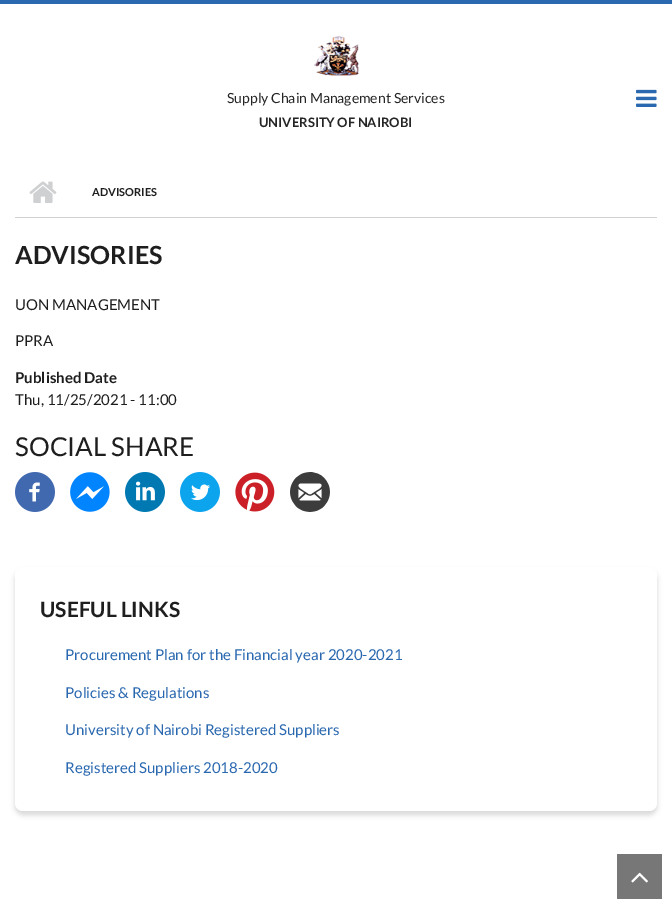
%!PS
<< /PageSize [672 909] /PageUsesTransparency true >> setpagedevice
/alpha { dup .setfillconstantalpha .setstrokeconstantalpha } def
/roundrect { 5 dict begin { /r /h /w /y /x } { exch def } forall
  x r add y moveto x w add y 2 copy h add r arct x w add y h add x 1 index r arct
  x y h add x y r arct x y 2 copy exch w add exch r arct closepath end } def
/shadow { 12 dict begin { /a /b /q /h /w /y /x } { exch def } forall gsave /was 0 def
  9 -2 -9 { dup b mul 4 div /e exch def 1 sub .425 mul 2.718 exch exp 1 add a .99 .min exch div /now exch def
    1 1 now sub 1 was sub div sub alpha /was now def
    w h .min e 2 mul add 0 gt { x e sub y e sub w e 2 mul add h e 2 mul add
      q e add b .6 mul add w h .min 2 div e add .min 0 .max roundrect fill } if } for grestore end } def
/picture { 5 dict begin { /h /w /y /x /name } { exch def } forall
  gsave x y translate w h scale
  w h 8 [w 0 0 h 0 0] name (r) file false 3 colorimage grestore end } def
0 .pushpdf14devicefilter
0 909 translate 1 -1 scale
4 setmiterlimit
1 setgray
0 0 672 909 rectfill
0.165 0.408 0.686 setrgbcolor
0 0 672 4 rectfill
(img1.rgb) 314 35 45 41 picture
/Lato-Regular [14 0 0 -14 0 0] selectfont
0.145 setgray
227 103 moveto (Supply Chain Management Services) show
/Lato-Bold [13 0 0 -13 0 0] selectfont
259 127 moveto (UNIVERSITY OF NAIROBI) show
(img2.rgb) 636 89 21 18 picture
0.812 0.816 0.824 setrgbcolor
15 217 642 1 rectfill
(img3.rgb) 29 181 28 22 picture
/Lato-Bold [11 0 0 -11 0 0] selectfont
0.118 setgray
92 196 moveto (ADVISORIES) show
/Lato-Bold [25 0 0 -25 0 0] selectfont
15 264 moveto (ADVISORIES) show
/Lato-Regular [15 0 0 -15 0 0] selectfont
15 310 moveto (UON MANAGEMENT) show
15 346 moveto (PPRA) show
/Lato-Bold [15 0 0 -15 0 0] selectfont
15 383 moveto (Published Date) show
/Lato-Regular [15 0 0 -15 0 0] selectfont
15 405 moveto (Thu, 11/25/2021 - 11:00) show
/Lato-Regular [26 0 0 -26 0 0] selectfont
15 456 moveto (SOCIAL SHARE) show
(img4.rgb) 15 472 40 40 picture
(img5.rgb) 70 472 40 40 picture
(img6.rgb) 125 472 40 40 picture
(img7.rgb) 180 472 40 40 picture
(img8.rgb) 235 472 40 40 picture
(img9.rgb) 290 472 40 40 picture
0 setgray
15 571 642 244 8 2.5 0.15 shadow
1 setgray
15 567 642 244 8 roundrect fill
/Lato-Bold [21 0 0 -21 0 0] selectfont
0.118 setgray
40 617 moveto (USEFUL LINKS) show
/Lato-Regular [15 0 0 -15 0 0] selectfont
0.165 0.408 0.686 setrgbcolor
65 660 moveto (Procurement Plan for the Financial year 2020-2021) show
65 698 moveto (Policies & Regulations) show
65 735 moveto (University of Nairobi Registered Suppliers) show
65 773 moveto (Registered Suppliers 2018-2020) show
0.467 setgray
617 854 45 45 rectfill
(img10.rgb) 631 872 17 11 picture
.poppdf14devicefilter showpage
